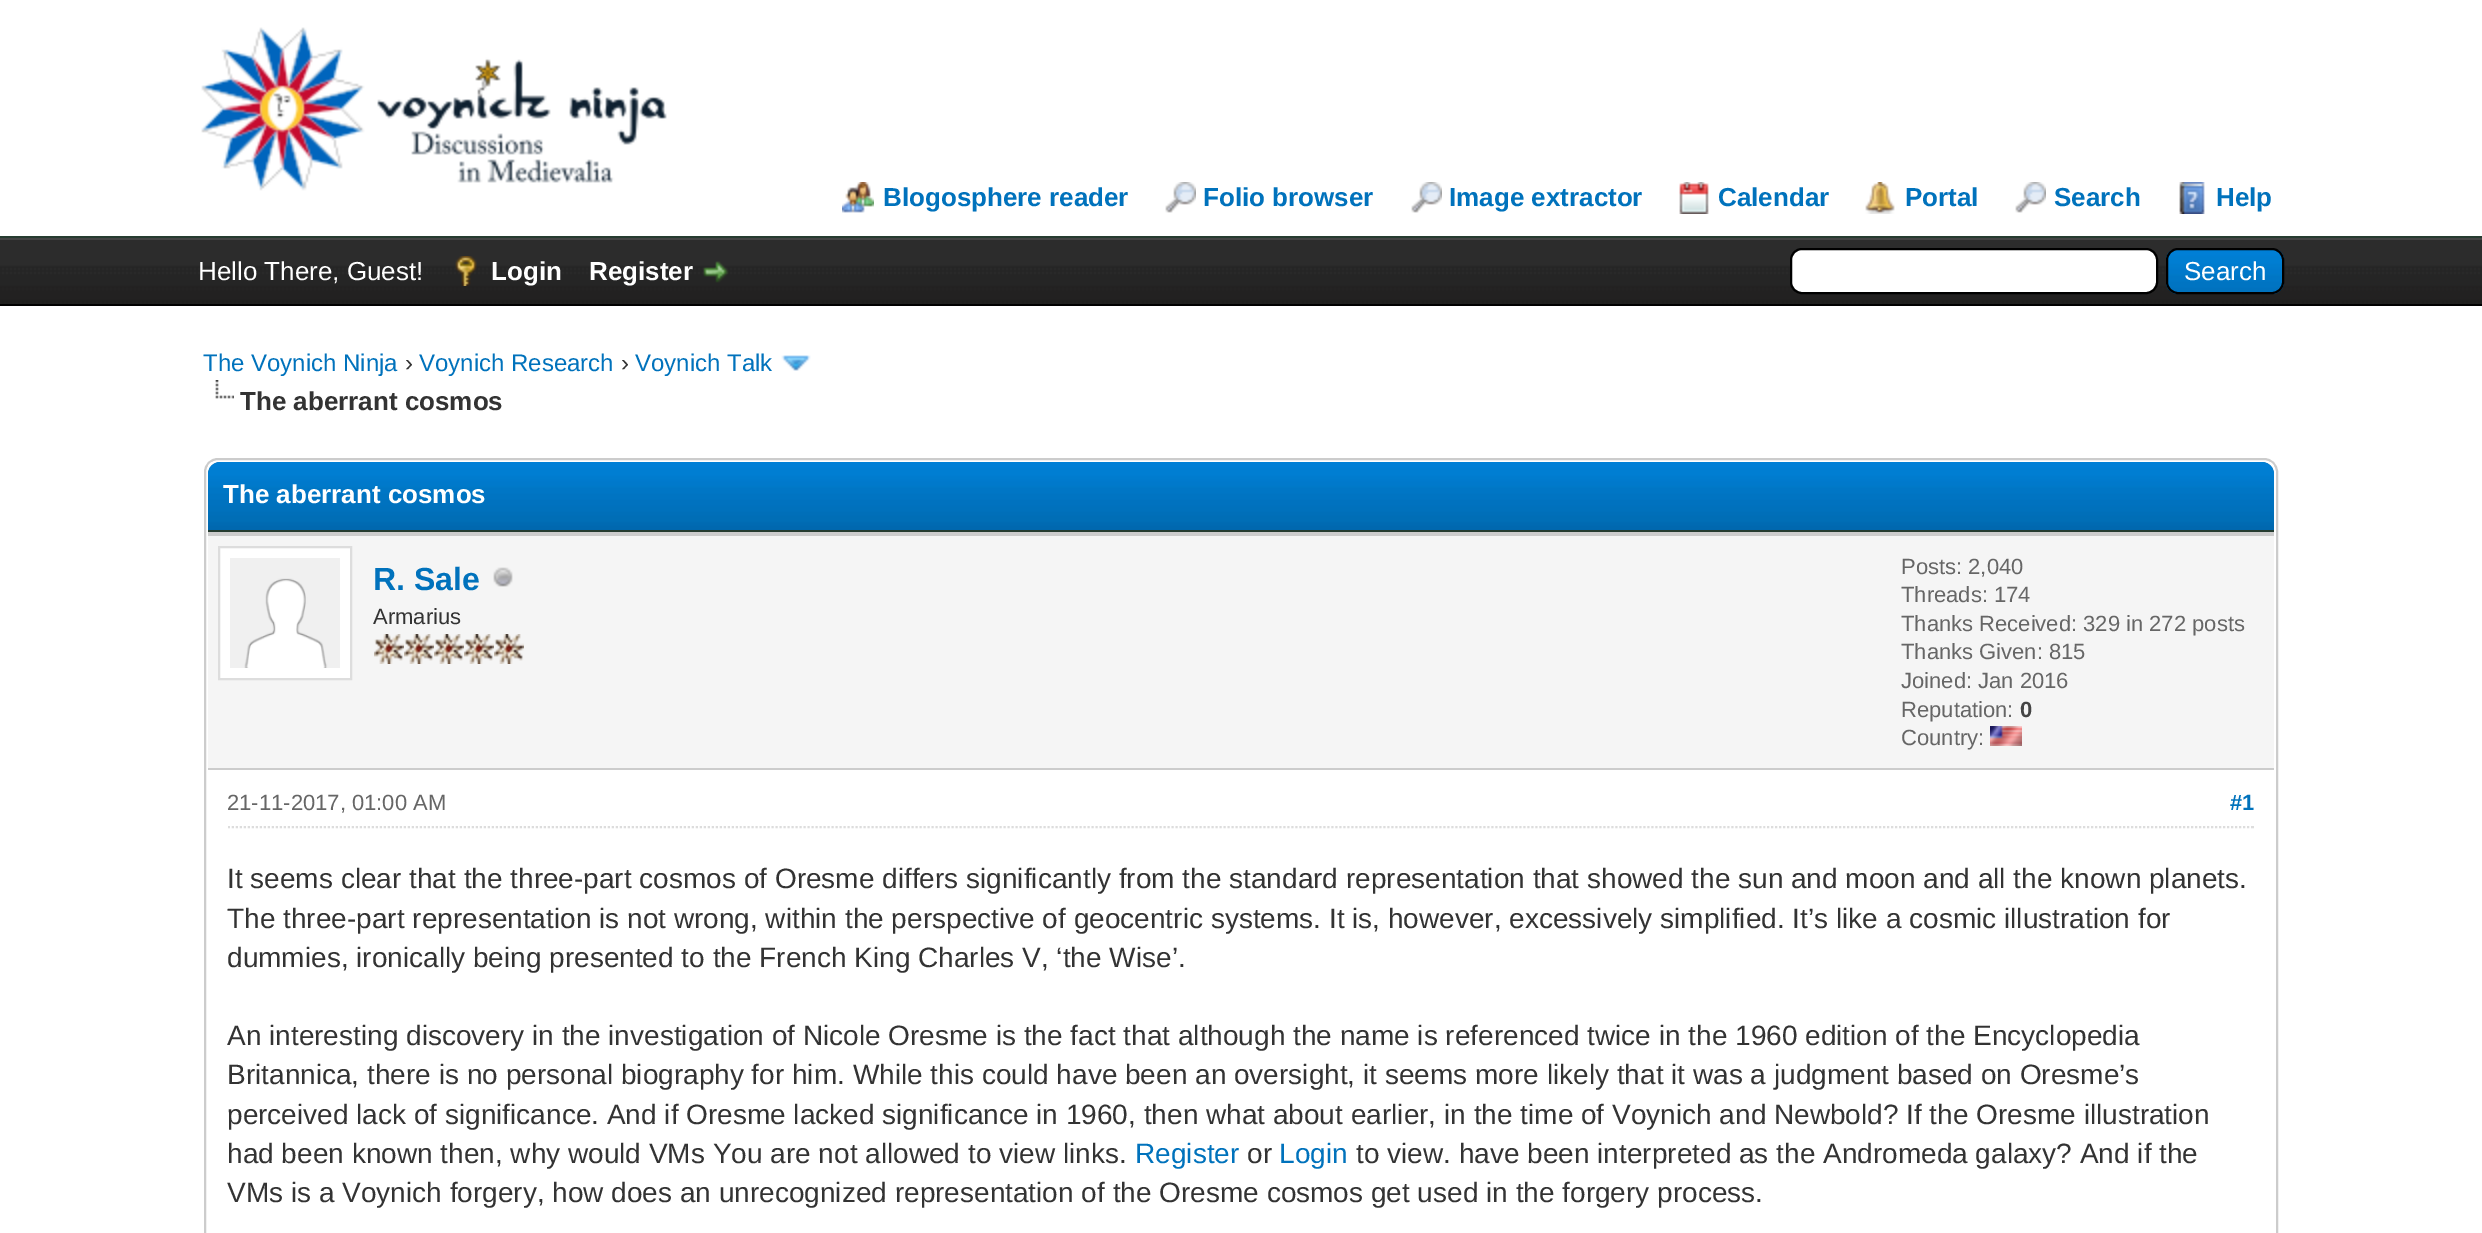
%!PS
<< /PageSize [2482 1233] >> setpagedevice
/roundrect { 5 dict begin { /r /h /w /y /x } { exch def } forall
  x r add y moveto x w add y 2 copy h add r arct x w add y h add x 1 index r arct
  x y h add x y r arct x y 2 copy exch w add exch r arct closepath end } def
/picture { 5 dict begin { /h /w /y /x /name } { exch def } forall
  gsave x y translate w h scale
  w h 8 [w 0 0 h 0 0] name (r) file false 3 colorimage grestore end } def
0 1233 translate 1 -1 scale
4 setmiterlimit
1 setgray
0 0 2482 1233 rectfill
0.149 0.235 0.188 setrgbcolor
0 236 2482 2 rectfill
(img1.rgb) 201 27 466 164 picture
(img2.rgb) 842 182 32 31 picture
/LiberationSans-Bold [26 0 0 -26 0 0] selectfont
0 0.447 0.737 setrgbcolor
883 206 moveto (Blogosphere reader) show
(img3.rgb) 1165 182 31 31 picture
1203 206 moveto (Folio browser) show
(img3.rgb) 1411 182 31 31 picture
1449 206 moveto (Image extractor) show
(img4.rgb) 1679 182 30 32 picture
1718 206 moveto (Calendar) show
(img5.rgb) 1865 182 30 32 picture
1905 206 moveto (Portal) show
(img3.rgb) 2015 182 31 31 picture
2054 206 moveto (Search) show
(img6.rgb) 2179 182 26 32 picture
2216 206 moveto (Help) show
(img7.rgb) 0 240 2482 64 picture
0.267 setgray
0 238 2482 2 rectfill
0 setgray
0 304 2482 2 rectfill
/LiberationSans-Regular [26 0 0 -26 0 0] selectfont
1 setgray
198 280 moveto (Hello There, Guest!) show
(img8.rgb) 455 256 22 30 picture
/LiberationSans-Bold [26 0 0 -26 0 0] selectfont
491 280 moveto (Login) show
589 280 moveto (Register) show
(img9.rgb) 703 261 26 22 picture
1791 249 366 44 11 roundrect gsave fill grestore
0 setgray
2 setlinewidth
stroke
(img10.rgb) 2166 250 118 44 picture
2167 249 116 44 11 roundrect stroke
/LiberationSans-Regular [26 0 0 -26 0 0] selectfont
1 setgray
2184 280 moveto (Search) show
/LiberationSans-Regular [24 0 0 -24 0 0] selectfont
0 0.447 0.737 setrgbcolor
203 371 moveto (The Voynich Ninja) show
0.2 setgray
405 371 moveto (›) show
0 0.447 0.737 setrgbcolor
419 371 moveto (Voynich Research) show
0.2 setgray
621 371 moveto (›) show
0 0.447 0.737 setrgbcolor
635 371 moveto (Voynich Talk) show
(img11.rgb) 781 355 30 16 picture
(img12.rgb) 215 380 19 19 picture
/LiberationSans-Bold [26 0 0 -26 0 0] selectfont
0.2 setgray
240 410 moveto (The aberrant cosmos) show
0.8 setgray
205 459 2072 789 13 roundrect stroke
(img13.rgb) 208 462 2066 68 picture
0.149 0.235 0.188 setrgbcolor
208 530 2066 2 rectfill
1 setgray
223 503 moveto (The aberrant cosmos) show
0.961 setgray
208 536 2066 232 rectfill
0.8 setgray
208 532 2066 4 rectfill
208 768 2066 2 rectfill
1 setgray
newpath 219 547 moveto 351 547 lineto 351 679 lineto 219 679 lineto closepath gsave fill grestore
0.867 setgray
stroke
(img14.rgb) 230 558 110 110 picture
/LiberationSans-Bold [32 0 0 -32 0 0] selectfont
0 0.447 0.737 setrgbcolor
373 590 moveto (R. Sale) show
(img15.rgb) 493 567 20 20 picture
/LiberationSans-Regular [22 0 0 -22 0 0] selectfont
0.2 setgray
373 624 moveto (Armarius) show
(img16.rgb) 374 634 30 30 picture
(img16.rgb) 404 634 30 30 picture
(img16.rgb) 434 634 30 30 picture
(img16.rgb) 464 634 30 30 picture
(img16.rgb) 494 634 30 30 picture
0.4 setgray
1901 574 moveto (Posts: 2,040) show
1901 602 moveto (Threads: 174) show
1901 631 moveto (Thanks Received: 329 in 272 posts) show
1901 659 moveto (Thanks Given: 815) show
1901 688 moveto (Joined: Jan 2016) show
1901 717 moveto (Reputation:) show
/LiberationSans-Bold [22 0 0 -22 0 0] selectfont
0.267 setgray
2020 717 moveto (0) show
/LiberationSans-Regular [22 0 0 -22 0 0] selectfont
0.4 setgray
1901 745 moveto (Country:) show
(img17.rgb) 1990 726 32 20 picture
0.867 setgray
[2 2] 0 setdash
newpath 228 827 moveto 2254 827 lineto stroke
0.4 setgray
227 810 moveto (21-11-2017, 01:00 AM) show
/LiberationSans-Bold [22 0 0 -22 0 0] selectfont
0 0.447 0.737 setrgbcolor
2230 810 moveto (#1) show
/LiberationSans-Regular [28 0 0 -28 0 0] selectfont
0.2 setgray
227 888 moveto (It seems clear that the three-part cosmos of Oresme differs significantly from the standard representation that showed the sun and moon and all the known planets.) show
227 928 moveto (The three-part representation is not wrong, within the perspective of geocentric systems. It is, however, excessively simplified. It’s like a cosmic illustration for) show
227 967 moveto (dummies, ironically being presented to the French King Charles V, ‘the Wise’.) show
227 1045 moveto (An interesting discovery in the investigation of Nicole Oresme is the fact that although the name is referenced twice in the 1960 edition of the Encyclopedia) show
227 1084 moveto (Britannica, there is no personal biography for him. While this could have been an oversight, it seems more likely that it was a judgment based on Oresme’s) show
227 1124 moveto (perceived lack of significance. And if Oresme lacked significance in 1960, then what about earlier, in the time of Voynich and Newbold? If the Oresme illustration) show
227 1163 moveto (had been known then, why would VMs You are not allowed to view links.) show
0 0.447 0.737 setrgbcolor
1135 1163 moveto (Register) show
0.2 setgray
1247 1163 moveto (or) show
0 0.447 0.737 setrgbcolor
1279 1163 moveto (Login) show
0.2 setgray
1356 1163 moveto (to view. have been interpreted as the Andromeda galaxy? And if the) show
227 1202 moveto (VMs is a Voynich forgery, how does an unrecognized representation of the Oresme cosmos get used in the forgery process.) show
showpage
